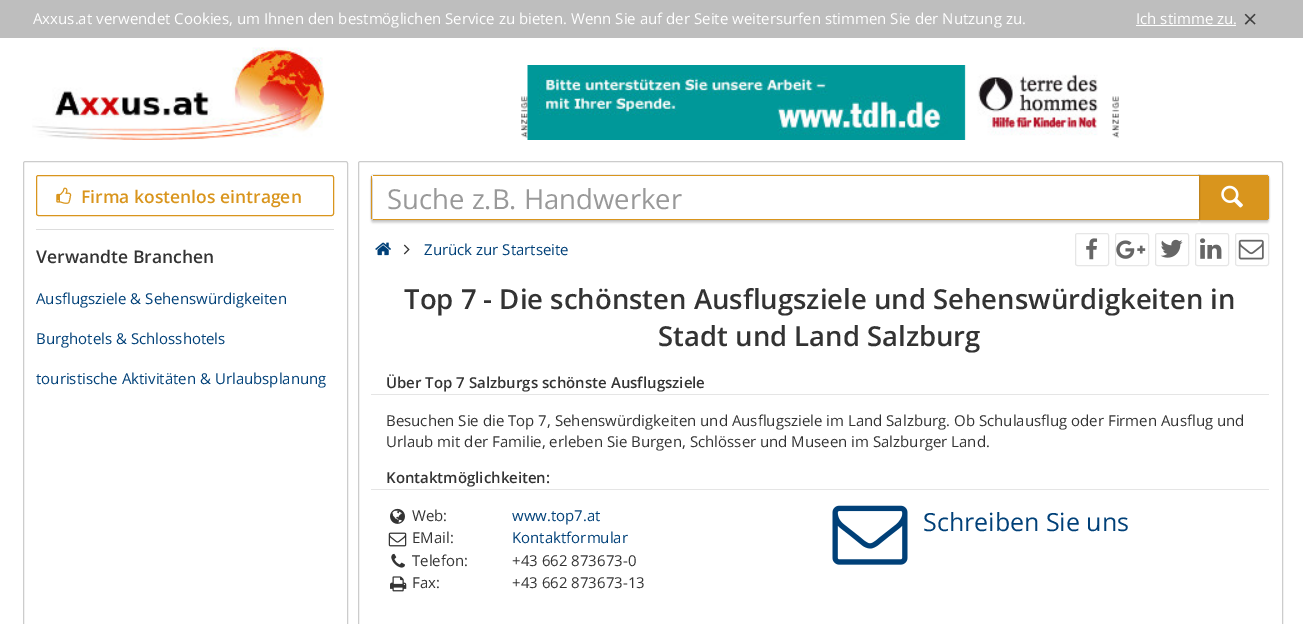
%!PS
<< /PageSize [1303 624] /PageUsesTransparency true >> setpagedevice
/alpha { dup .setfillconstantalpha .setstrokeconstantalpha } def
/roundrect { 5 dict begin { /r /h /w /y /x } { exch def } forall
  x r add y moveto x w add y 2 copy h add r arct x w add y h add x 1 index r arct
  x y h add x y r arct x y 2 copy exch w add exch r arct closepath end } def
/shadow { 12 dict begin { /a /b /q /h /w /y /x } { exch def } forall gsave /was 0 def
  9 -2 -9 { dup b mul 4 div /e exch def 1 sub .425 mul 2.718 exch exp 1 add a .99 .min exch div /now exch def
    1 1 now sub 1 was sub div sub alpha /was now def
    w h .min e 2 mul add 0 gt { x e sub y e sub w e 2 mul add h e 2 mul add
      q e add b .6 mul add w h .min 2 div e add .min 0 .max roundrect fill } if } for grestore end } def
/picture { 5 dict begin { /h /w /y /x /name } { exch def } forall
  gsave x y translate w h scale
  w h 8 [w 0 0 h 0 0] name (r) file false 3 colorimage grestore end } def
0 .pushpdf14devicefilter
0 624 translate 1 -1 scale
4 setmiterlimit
1 setgray
0 0 1303 624 rectfill
0.745 setgray
0 0 1303 38 rectfill
/OpenSans-Regular [15 0 0 -15 0 0] selectfont
1 setgray
33 24 moveto (Axxus.at verwendet Cookies, um Ihnen den bestmöglichen Service zu bieten. Wenn Sie auf der Seite weitersurfen stimmen Sie der Nutzung zu.) show
1136 24 moveto (Ich stimme zu.) show
1136 25 100 1 rectfill
/OpenSans-Regular [25 0 0 -25 0 0] selectfont
0.251 setgray
1243 28 moveto (×) show
(img1.rgb) 32 47 293 93 picture
(img2.rgb) 521 96 7 42 picture
(img3.rgb) 527 65 571 75 picture
(img4.rgb) 1112 96 7 42 picture
0.8 setgray
23.5 161.5 324 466 2 roundrect stroke
0.851 0.584 0.114 setrgbcolor
36.5 175.5 297 40 2 roundrect stroke
(img5.rgb) 56 187 16 17 picture
/OpenSans-SemiBold [17.5 0 0 -17.5 0 0] selectfont
81 203 moveto (Firma kostenlos eintragen) show
0.867 setgray
36 229 298 1 rectfill
0.2 setgray
36 263 moveto (Verwandte Branchen) show
/OpenSans-Regular [15 0 0 -15 0 0] selectfont
0 0.251 0.471 setrgbcolor
36 304 moveto (Ausflugsziele & Sehenswürdigkeiten) show
36 344 moveto (Burghotels & Schlosshotels) show
36 384 moveto (touristische Aktivitäten & Urlaubsplanung) show
0.8 setgray
358.5 161.5 924 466 2 roundrect stroke
0.922 setgray
newpath 1198.5 174.5 moveto 1266 174.5 lineto 1268 174.5 1269.5 176 1269.5 178 curveto 1269.5 217 lineto 1269.5 219 1268 220.5 1266 220.5 curveto 1198.5 220.5 lineto closepath stroke
0 setgray
1199 178 70 45 2.5 1 0.16 shadow
0.851 0.584 0.114 setrgbcolor
newpath 1199 176 moveto 1267 176 lineto 1267.5 176 1268 176.5 1268 177 curveto 1268 218 lineto 1268 218.5 1267.5 219 1267 219 curveto 1199 219 lineto closepath fill
1199 175 69 1 rectfill
1199 219 69 1 rectfill
0.08 alpha
0 setgray
newpath 374 174.5 moveto 1199.5 174.5 lineto 1199.5 220.5 lineto 374 220.5 lineto 372 220.5 370.5 219 370.5 217 curveto 370.5 178 lineto 370.5 176 372 174.5 374 174.5 curveto closepath stroke
1 alpha
371 178 828 45 2.5 1 0.16 shadow
1 setgray
newpath 374 176 moveto 1199 176 lineto 1199 219 lineto 374 219 lineto 373.5 219 373 218.5 373 218 curveto 373 177 lineto 373 176.5 373.5 176 374 176 curveto closepath fill
0.851 0.584 0.114 setrgbcolor
373 175 826 1 rectfill
373 219 826 1 rectfill
371 176 1 43 rectfill
/OpenSans-Regular [27.5 0 0 -27.5 0 0] selectfont
0.6 setgray
387 209 moveto (Suche z.B. Handwerker) show
0.851 0.584 0.114 setrgbcolor
1268 176 1 43 rectfill
(img6.rgb) 1221 185 22 23 picture
(img7.rgb) 375 242 16 14 picture
(img8.rgb) 403 244 7 11 picture
/OpenSans-Regular [15 0 0 -15 0 0] selectfont
0 0.251 0.471 setrgbcolor
424 255 moveto (Zurück zur Startseite) show
0.902 setgray
1075.5 233.5 33 32 2 roundrect stroke
(img9.rgb) 1086 238 12 22 picture
1115.5 233.5 33 32 2 roundrect stroke
(img10.rgb) 1116 240 30 19 picture
1155.5 233.5 33 32 2 roundrect stroke
(img11.rgb) 1160 239 23 19 picture
1195.5 233.5 33 32 2 roundrect stroke
(img12.rgb) 1200 238 22 21 picture
1235.5 233.5 33 32 2 roundrect stroke
(img13.rgb) 1238 239 26 21 picture
/OpenSans-SemiBold [27.5 0 0 -27.5 0 0] selectfont
0.2 setgray
404 309 moveto (Top 7 - Die schönsten Ausflugsziele und Sehenswürdigkeiten in) show
658 346 moveto (Stadt und Land Salzburg) show
/OpenSans-SemiBold [15 0 0 -15 0 0] selectfont
386 388 moveto (Über Top 7 Salzburgs schönste Ausflugsziele) show
0.898 setgray
371 394 898 1 rectfill
/OpenSans-Regular [15 0 0 -15 0 0] selectfont
0.2 setgray
386 426 moveto (Besuchen Sie die Top 7, Sehenswürdigkeiten und Ausflugsziele im Land Salzburg. Ob Schulausflug oder Firmen Ausflug und) show
386 447 moveto (Urlaub mit der Familie, erleben Sie Burgen, Schlösser und Museen im Salzburger Land.) show
/OpenSans-SemiBold [15 0 0 -15 0 0] selectfont
386 483 moveto (Kontaktmöglichkeiten:) show
0.898 setgray
371 489 898 1 rectfill
(img14.rgb) 390 508 15 16 picture
/OpenSans-Regular [15 0 0 -15 0 0] selectfont
0.2 setgray
412 521 moveto (Web:) show
0 0.251 0.471 setrgbcolor
512 521 moveto (www.top7.at) show
(img15.rgb) 388 532 19 15 picture
0.2 setgray
412 543 moveto (EMail:) show
0 0.251 0.471 setrgbcolor
512 543 moveto (Kontaktformular) show
(img16.rgb) 391 553 14 15 picture
0.2 setgray
412 566 moveto (Telefon:) show
512 566 moveto (+43 662 873673-0) show
(img17.rgb) 390 576 17 16 picture
412 588 moveto (Fax:) show
512 588 moveto (+43 662 873673-13) show
(img18.rgb) 832 505 76 60 picture
/OpenSans-Regular [25 0 0 -25 0 0] selectfont
0 0.251 0.471 setrgbcolor
923 531 moveto (Schreiben Sie uns) show
.poppdf14devicefilter showpage
